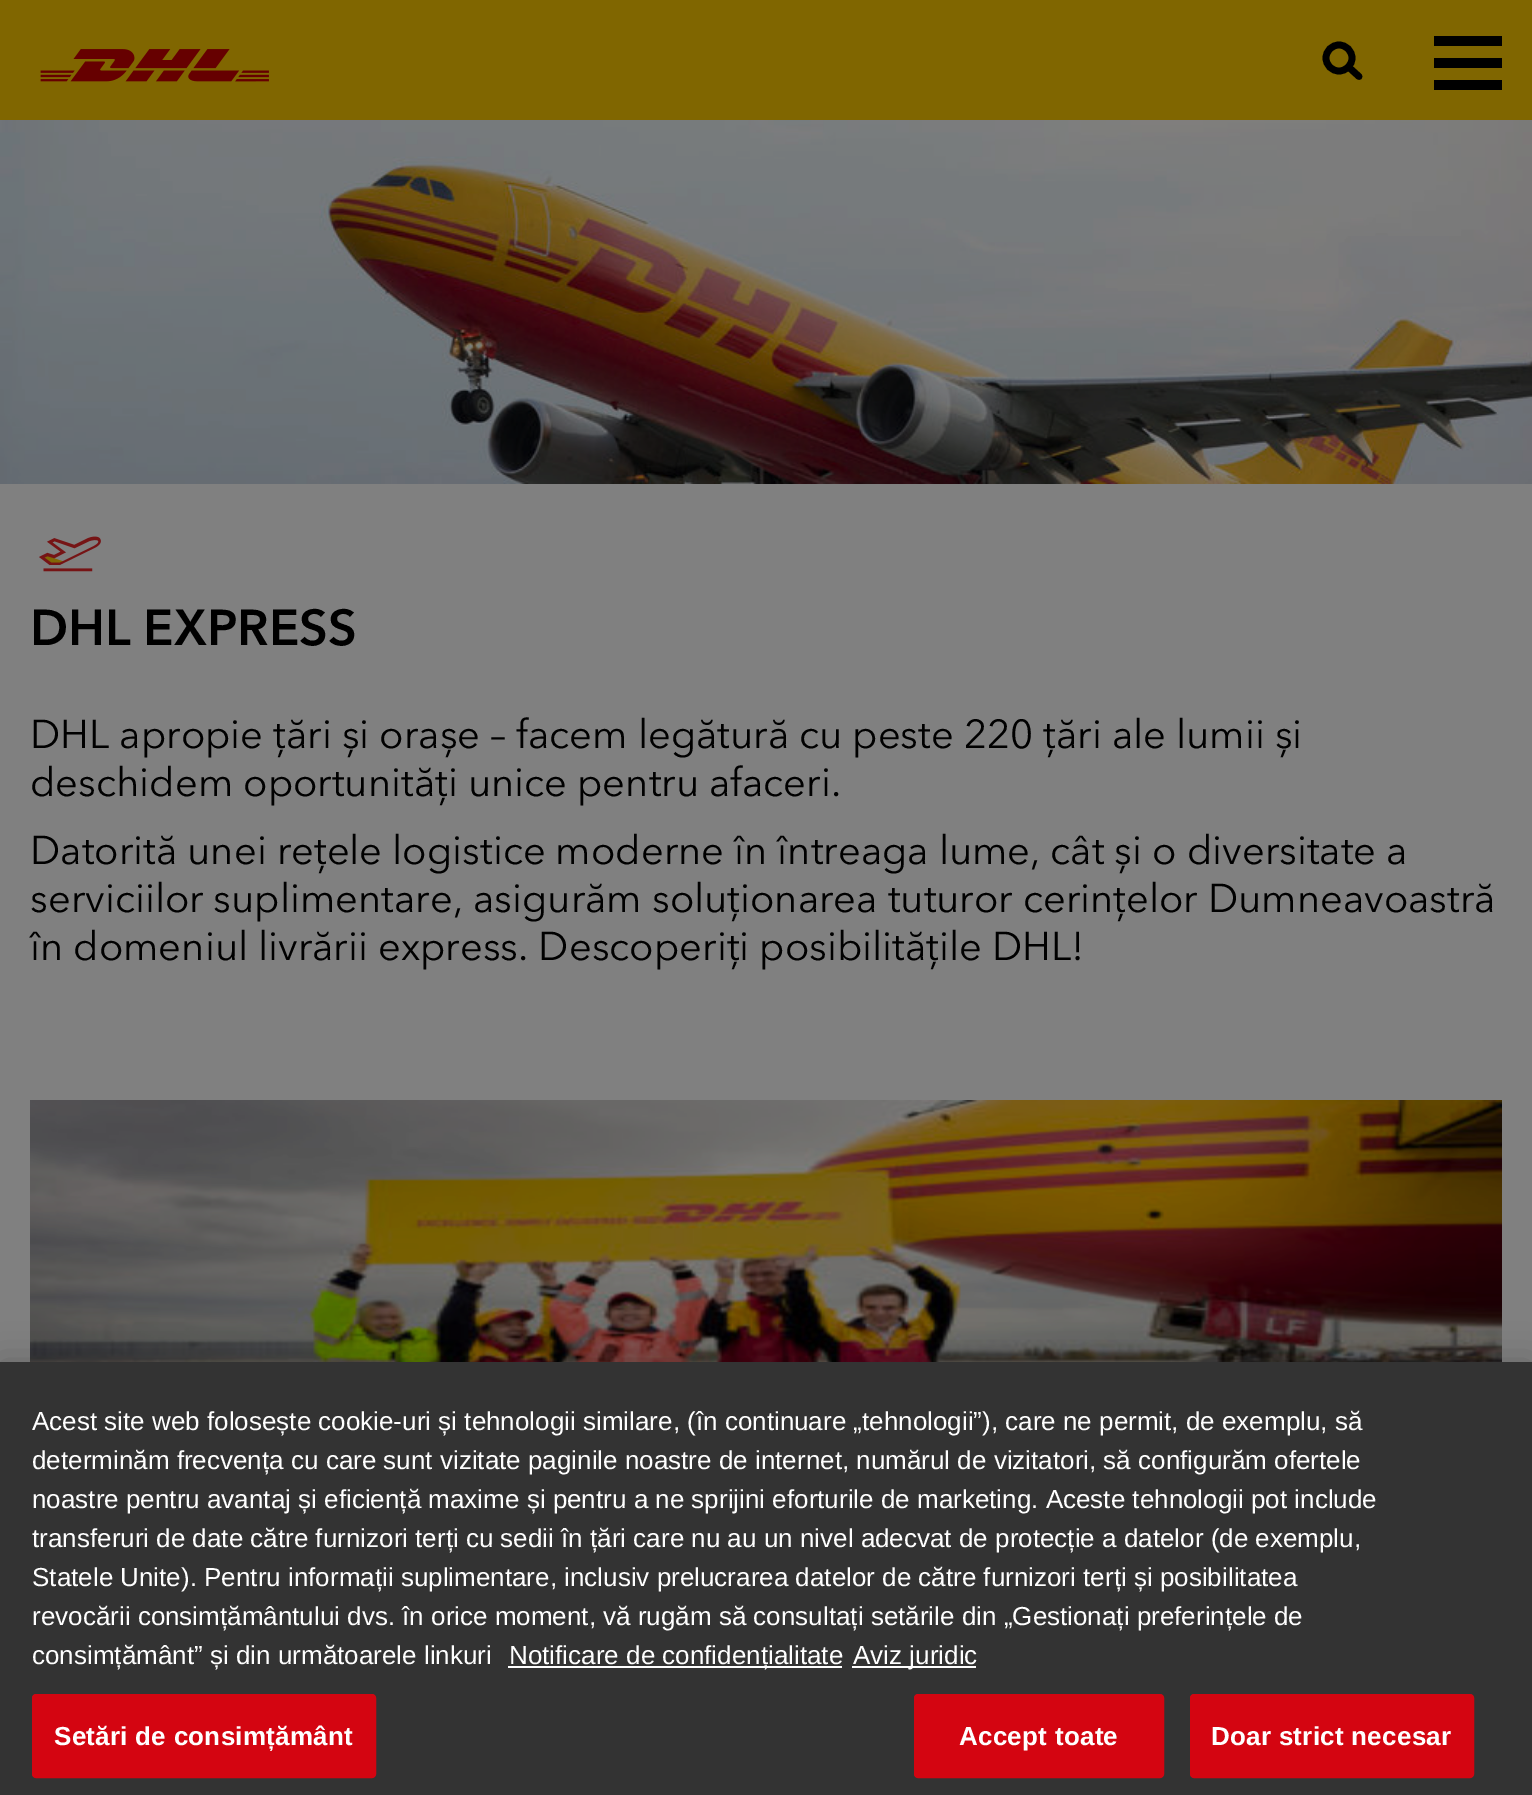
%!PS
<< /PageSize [1532 1795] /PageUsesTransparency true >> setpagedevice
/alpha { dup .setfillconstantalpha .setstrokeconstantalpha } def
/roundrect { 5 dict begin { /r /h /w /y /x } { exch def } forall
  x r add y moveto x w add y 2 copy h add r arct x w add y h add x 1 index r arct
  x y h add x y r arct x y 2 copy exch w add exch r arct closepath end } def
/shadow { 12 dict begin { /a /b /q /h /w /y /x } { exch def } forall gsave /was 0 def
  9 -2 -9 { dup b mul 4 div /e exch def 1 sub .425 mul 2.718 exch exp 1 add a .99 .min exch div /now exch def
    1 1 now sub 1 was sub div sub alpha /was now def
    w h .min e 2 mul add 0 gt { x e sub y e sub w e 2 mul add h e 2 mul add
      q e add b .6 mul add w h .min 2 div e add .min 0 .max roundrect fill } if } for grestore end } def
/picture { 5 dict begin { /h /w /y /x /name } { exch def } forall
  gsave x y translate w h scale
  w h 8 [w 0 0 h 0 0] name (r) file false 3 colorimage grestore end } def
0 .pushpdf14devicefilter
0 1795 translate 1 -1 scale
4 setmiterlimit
0.502 setgray
0 0 1532 1795 rectfill
0.502 0.4 0 setrgbcolor
0 0 1532 120 rectfill
(img1.rgb) 40 49 229 33 picture
0 setgray
6.7 setlinewidth
newpath 1339 58 13 0 360 arc closepath stroke
1 setlinecap
newpath 1348.5 67 moveto 1359 76.5 lineto stroke
1434 36 68 10 rectfill
1434 58 68 10 rectfill
1434 80 68 10 rectfill
(img2.rgb) 0 120 1532 364 picture
(img3.rgb) 39 536 62 36 picture
/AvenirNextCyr-Bold [50 0 0 -50 0 0] selectfont
30 645 moveto (DHL EXPRESS) show
/AvenirNextCyr-Regular [40 0 0 -40 0 0] selectfont
30 748 moveto (DHL apropie țări și orașe – facem legătură cu peste 220 țări ale lumii și) show
30 796 moveto (deschidem oportunități unice pentru afaceri.) show
30 864 moveto (Datorită unei rețele logistice moderne în întreaga lume, cât și o diversitate a) show
30 912 moveto (serviciilor suplimentare, asigurăm soluționarea tuturor cerințelor Dumneavoastră) show
30 960 moveto (în domeniul livrării express. Descoperiți posibilitățile DHL!) show
(img4.rgb) 30 1100 1472 262 picture
0 1362 1532 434 0 18 0.2 shadow
0.2 setgray
0 1362 1532 433 rectfill
/LiberationSans-Regular [26.02 0 0 -26.02 0 0] selectfont
1 setgray
32 1430 moveto (Acest site web folosește cookie-uri și tehnologii similare, \(în continuare „tehnologii”\), care ne permit, de exemplu, să) show
32 1469 moveto (determinăm frecvența cu care sunt vizitate paginile noastre de internet, numărul de vizitatori, să configurăm ofertele) show
32 1508 moveto (noastre pentru avantaj și eficiență maxime și pentru a ne sprijini eforturile de marketing. Aceste tehnologii pot include) show
32 1547 moveto (transferuri de date către furnizori terți cu sedii în țări care nu au un nivel adecvat de protecție a datelor \(de exemplu,) show
32 1586 moveto (Statele Unite\). Pentru informații suplimentare, inclusiv prelucrarea datelor de către furnizori terți și posibilitatea) show
32 1625 moveto (revocării consimțământului dvs. în orice moment, vă rugăm să consultați setările din „Gestionați preferințele de) show
32 1664 moveto (consimțământ” și din următoarele linkuri) show
508 1666 334 2 rectfill
509 1664 moveto (Notificare de confidențialitate) show
852 1666 124 2 rectfill
853 1664 moveto (Aviz juridic) show
0.831 0.02 0.067 setrgbcolor
33 1695 342 82 3 roundrect gsave fill grestore
2 setlinewidth
0 setlinecap
stroke
/LiberationSans-Bold [26.02 0 0 -26.02 0 0] selectfont
1 setgray
54 1745 moveto 0.25 0 (Setări de consimțământ) ashow
0.831 0.02 0.067 setrgbcolor
915 1695 248 82 3 roundrect gsave fill grestore
stroke
1 setgray
959 1745 moveto 0.25 0 (Accept toate) ashow
0.831 0.02 0.067 setrgbcolor
1191 1695 282 82 3 roundrect gsave fill grestore
stroke
1 setgray
1211 1745 moveto 0.25 0 (Doar strict necesar) ashow
.poppdf14devicefilter showpage
